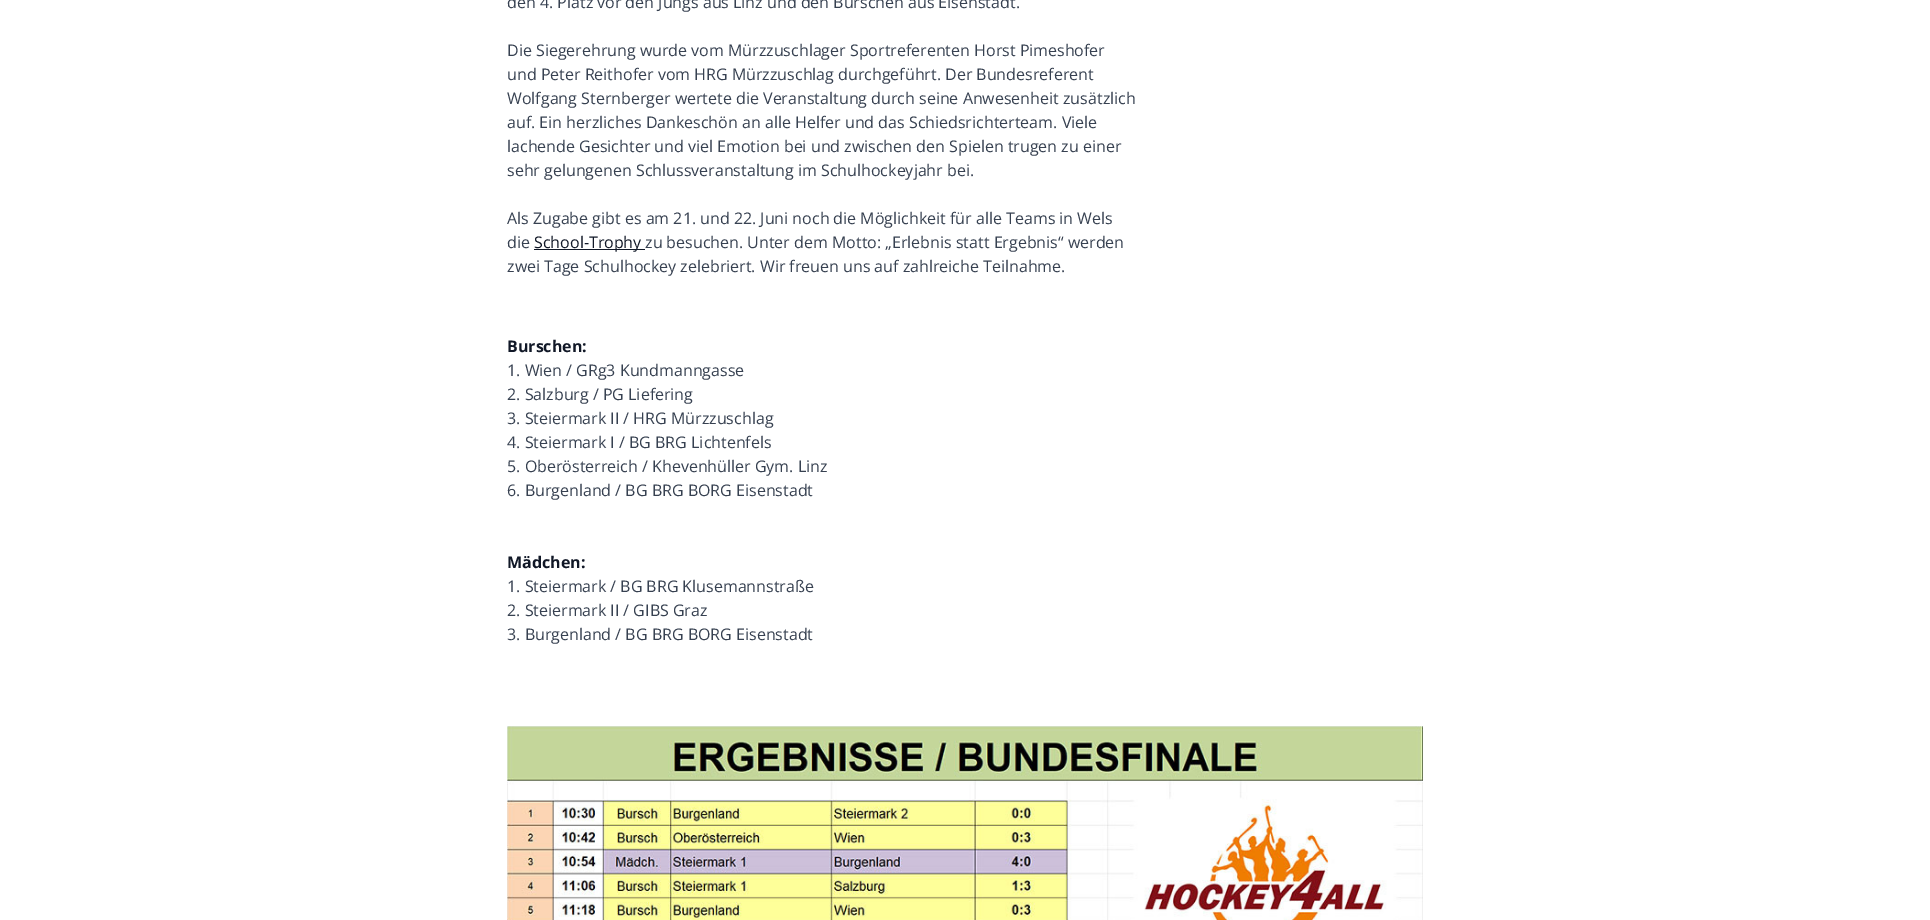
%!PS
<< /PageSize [1930 920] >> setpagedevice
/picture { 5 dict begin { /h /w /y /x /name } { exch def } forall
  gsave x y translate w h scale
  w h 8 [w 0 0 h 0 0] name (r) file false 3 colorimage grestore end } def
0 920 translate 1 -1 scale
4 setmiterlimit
1 setgray
0 0 1930 920 rectfill
/OpenSans-Regular [16 0 0 -16 0 0] selectfont
0.216 0.255 0.318 setrgbcolor
507 8 moveto (den 4. Platz vor den Jungs aus Linz und den Burschen aus Eisenstadt.) show
507 56 moveto (Die Siegerehrung wurde vom Mürzzuschlager Sportreferenten Horst Pimeshofer) show
507 80 moveto (und Peter Reithofer vom HRG Mürzzuschlag durchgeführt. Der Bundesreferent) show
507 104 moveto (Wolfgang Sternberger wertete die Veranstaltung durch seine Anwesenheit zusätzlich) show
507 128 moveto (auf. Ein herzliches Dankeschön an alle Helfer und das Schiedsrichterteam. Viele) show
507 152 moveto (lachende Gesichter und viel Emotion bei und zwischen den Spielen trugen zu einer) show
507 176 moveto (sehr gelungenen Schlussveranstaltung im Schulhockeyjahr bei.) show
507 224 moveto (Als Zugabe gibt es am 21. und 22. Juni noch die Möglichkeit für alle Teams in Wels) show
507 248 moveto (die) show
0.067 0.094 0.153 setrgbcolor
534 249 111 1 rectfill
534 248 moveto (School-Trophy) show
0.216 0.255 0.318 setrgbcolor
645 248 moveto (zu besuchen. Unter dem Motto: „Erlebnis statt Ergebnis“ werden) show
507 272 moveto (zwei Tage Schulhockey zelebriert. Wir freuen uns auf zahlreiche Teilnahme.) show
/OpenSans-Bold [16 0 0 -16 0 0] selectfont
0.067 0.094 0.153 setrgbcolor
507 352 moveto (Burschen:) show
/OpenSans-Regular [16 0 0 -16 0 0] selectfont
0.216 0.255 0.318 setrgbcolor
507 376 moveto (1. Wien / GRg3 Kundmanngasse) show
507 400 moveto (2. Salzburg / PG Liefering) show
507 424 moveto (3. Steiermark II / HRG Mürzzuschlag) show
507 448 moveto (4. Steiermark I / BG BRG Lichtenfels) show
507 472 moveto (5. Oberösterreich / Khevenhüller Gym. Linz) show
507 496 moveto (6. Burgenland / BG BRG BORG Eisenstadt) show
/OpenSans-Bold [16 0 0 -16 0 0] selectfont
0.067 0.094 0.153 setrgbcolor
507 568 moveto (Mädchen:) show
/OpenSans-Regular [16 0 0 -16 0 0] selectfont
0.216 0.255 0.318 setrgbcolor
507 592 moveto (1. Steiermark / BG BRG Klusemannstraße) show
507 616 moveto (2. Steiermark II / GIBS Graz) show
507 640 moveto (3. Burgenland / BG BRG BORG Eisenstadt) show
(img1.rgb) 507 726 916 194 picture
showpage
